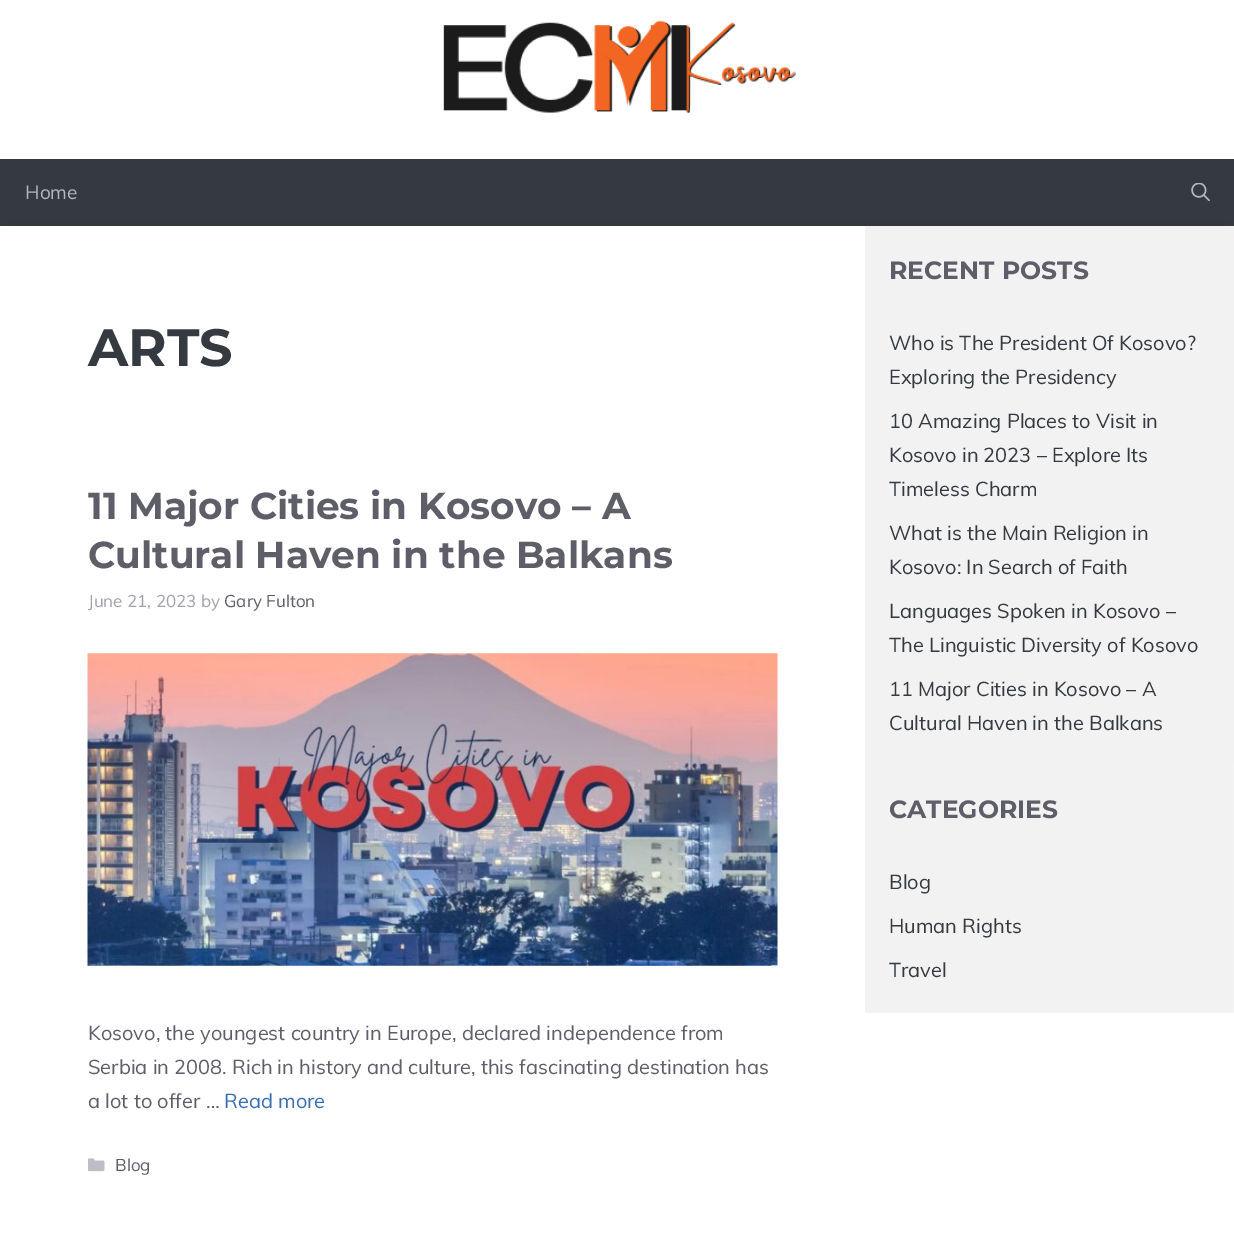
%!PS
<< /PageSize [1234 1257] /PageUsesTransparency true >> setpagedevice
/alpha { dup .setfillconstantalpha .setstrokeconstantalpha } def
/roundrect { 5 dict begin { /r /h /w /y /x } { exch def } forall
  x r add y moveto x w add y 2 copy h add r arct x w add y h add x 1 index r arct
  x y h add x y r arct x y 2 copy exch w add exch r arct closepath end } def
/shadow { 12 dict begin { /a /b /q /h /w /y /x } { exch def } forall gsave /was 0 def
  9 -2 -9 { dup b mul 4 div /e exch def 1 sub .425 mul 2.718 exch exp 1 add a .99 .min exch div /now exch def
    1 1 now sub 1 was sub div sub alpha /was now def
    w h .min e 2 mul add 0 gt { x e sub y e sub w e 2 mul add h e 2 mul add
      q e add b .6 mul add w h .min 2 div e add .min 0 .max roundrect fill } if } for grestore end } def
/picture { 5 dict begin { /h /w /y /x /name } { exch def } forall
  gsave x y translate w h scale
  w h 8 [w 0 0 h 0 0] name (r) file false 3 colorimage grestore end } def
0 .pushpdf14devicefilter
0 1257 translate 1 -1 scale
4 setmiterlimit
1 setgray
0 0 1234 1257 rectfill
(img1.rgb) 443 20 353 94 picture
0.204 0.227 0.251 setrgbcolor
0 159 1234 67 rectfill
/Muli-Regular [19 0 0 -19 0 0] selectfont
0.71 0.718 0.749 setrgbcolor
25 199 moveto (Home) show
0 setgray
13 239 1210 1014 0 12.5 0.3 shadow
(img2.rgb) 1191 183 19 18 picture
1 setgray
0 226 865 1031 rectfill
/Montserrat-Bold [52.5 0 0 -52.5 0 0] selectfont
0.204 0.227 0.251 setrgbcolor
88 366 moveto (ARTS) show
/Montserrat-Bold [37.5 0 0 -37.5 0 0] selectfont
0.369 0.369 0.412 setrgbcolor
88 519 moveto (11 Major Cities in Kosovo – A) show
88 568 moveto (Cultural Haven in the Balkans) show
/Muli-Regular [17 0 0 -17 0 0] selectfont
0.627 0.631 0.678 setrgbcolor
88 607 moveto (June 21, 2023 by) show
0.369 0.369 0.412 setrgbcolor
224 607 moveto (Gary Fulton) show
(img3.rgb) 87 653 691 313 picture
/Muli-Regular [20 0 0 -20 0 0] selectfont
88 1040 moveto (Kosovo, the youngest country in Europe, declared independence from) show
88 1074 moveto (Serbia in 2008. Rich in history and culture, this fascinating destination has) show
88 1108 moveto (a lot to offer …) show
0.224 0.431 0.702 setrgbcolor
224 1108 moveto (Read more) show
(img4.rgb) 88 1158 17 14 picture
/Muli-Regular [17 0 0 -17 0 0] selectfont
0.369 0.369 0.412 setrgbcolor
115 1171 moveto (Blog) show
1 setgray
865 1013 369 244 rectfill
0.949 setgray
865 226 369 539 rectfill
/Montserrat-Bold [25 0 0 -25 0 0] selectfont
0.369 0.369 0.412 setrgbcolor
889 279 moveto (RECENT POSTS) show
/Muli-Regular [20 0 0 -20 0 0] selectfont
0.204 0.227 0.251 setrgbcolor
889 350 moveto (Who is The President Of Kosovo?) show
889 384 moveto (Exploring the Presidency) show
889 428 moveto (10 Amazing Places to Visit in) show
889 462 moveto (Kosovo in 2023 – Explore Its) show
889 496 moveto (Timeless Charm) show
889 540 moveto (What is the Main Religion in) show
889 574 moveto (Kosovo: In Search of Faith) show
889 618 moveto (Languages Spoken in Kosovo –) show
889 652 moveto (The Linguistic Diversity of Kosovo) show
889 696 moveto (11 Major Cities in Kosovo – A) show
889 730 moveto (Cultural Haven in the Balkans) show
0.949 setgray
865 765 368 248 rectfill
/Montserrat-Bold [25 0 0 -25 0 0] selectfont
0.369 0.369 0.412 setrgbcolor
889 818 moveto (CATEGORIES) show
/Muli-Regular [20 0 0 -20 0 0] selectfont
0.204 0.227 0.251 setrgbcolor
889 889 moveto (Blog) show
889 933 moveto (Human Rights) show
889 977 moveto (Travel) show
.poppdf14devicefilter showpage
